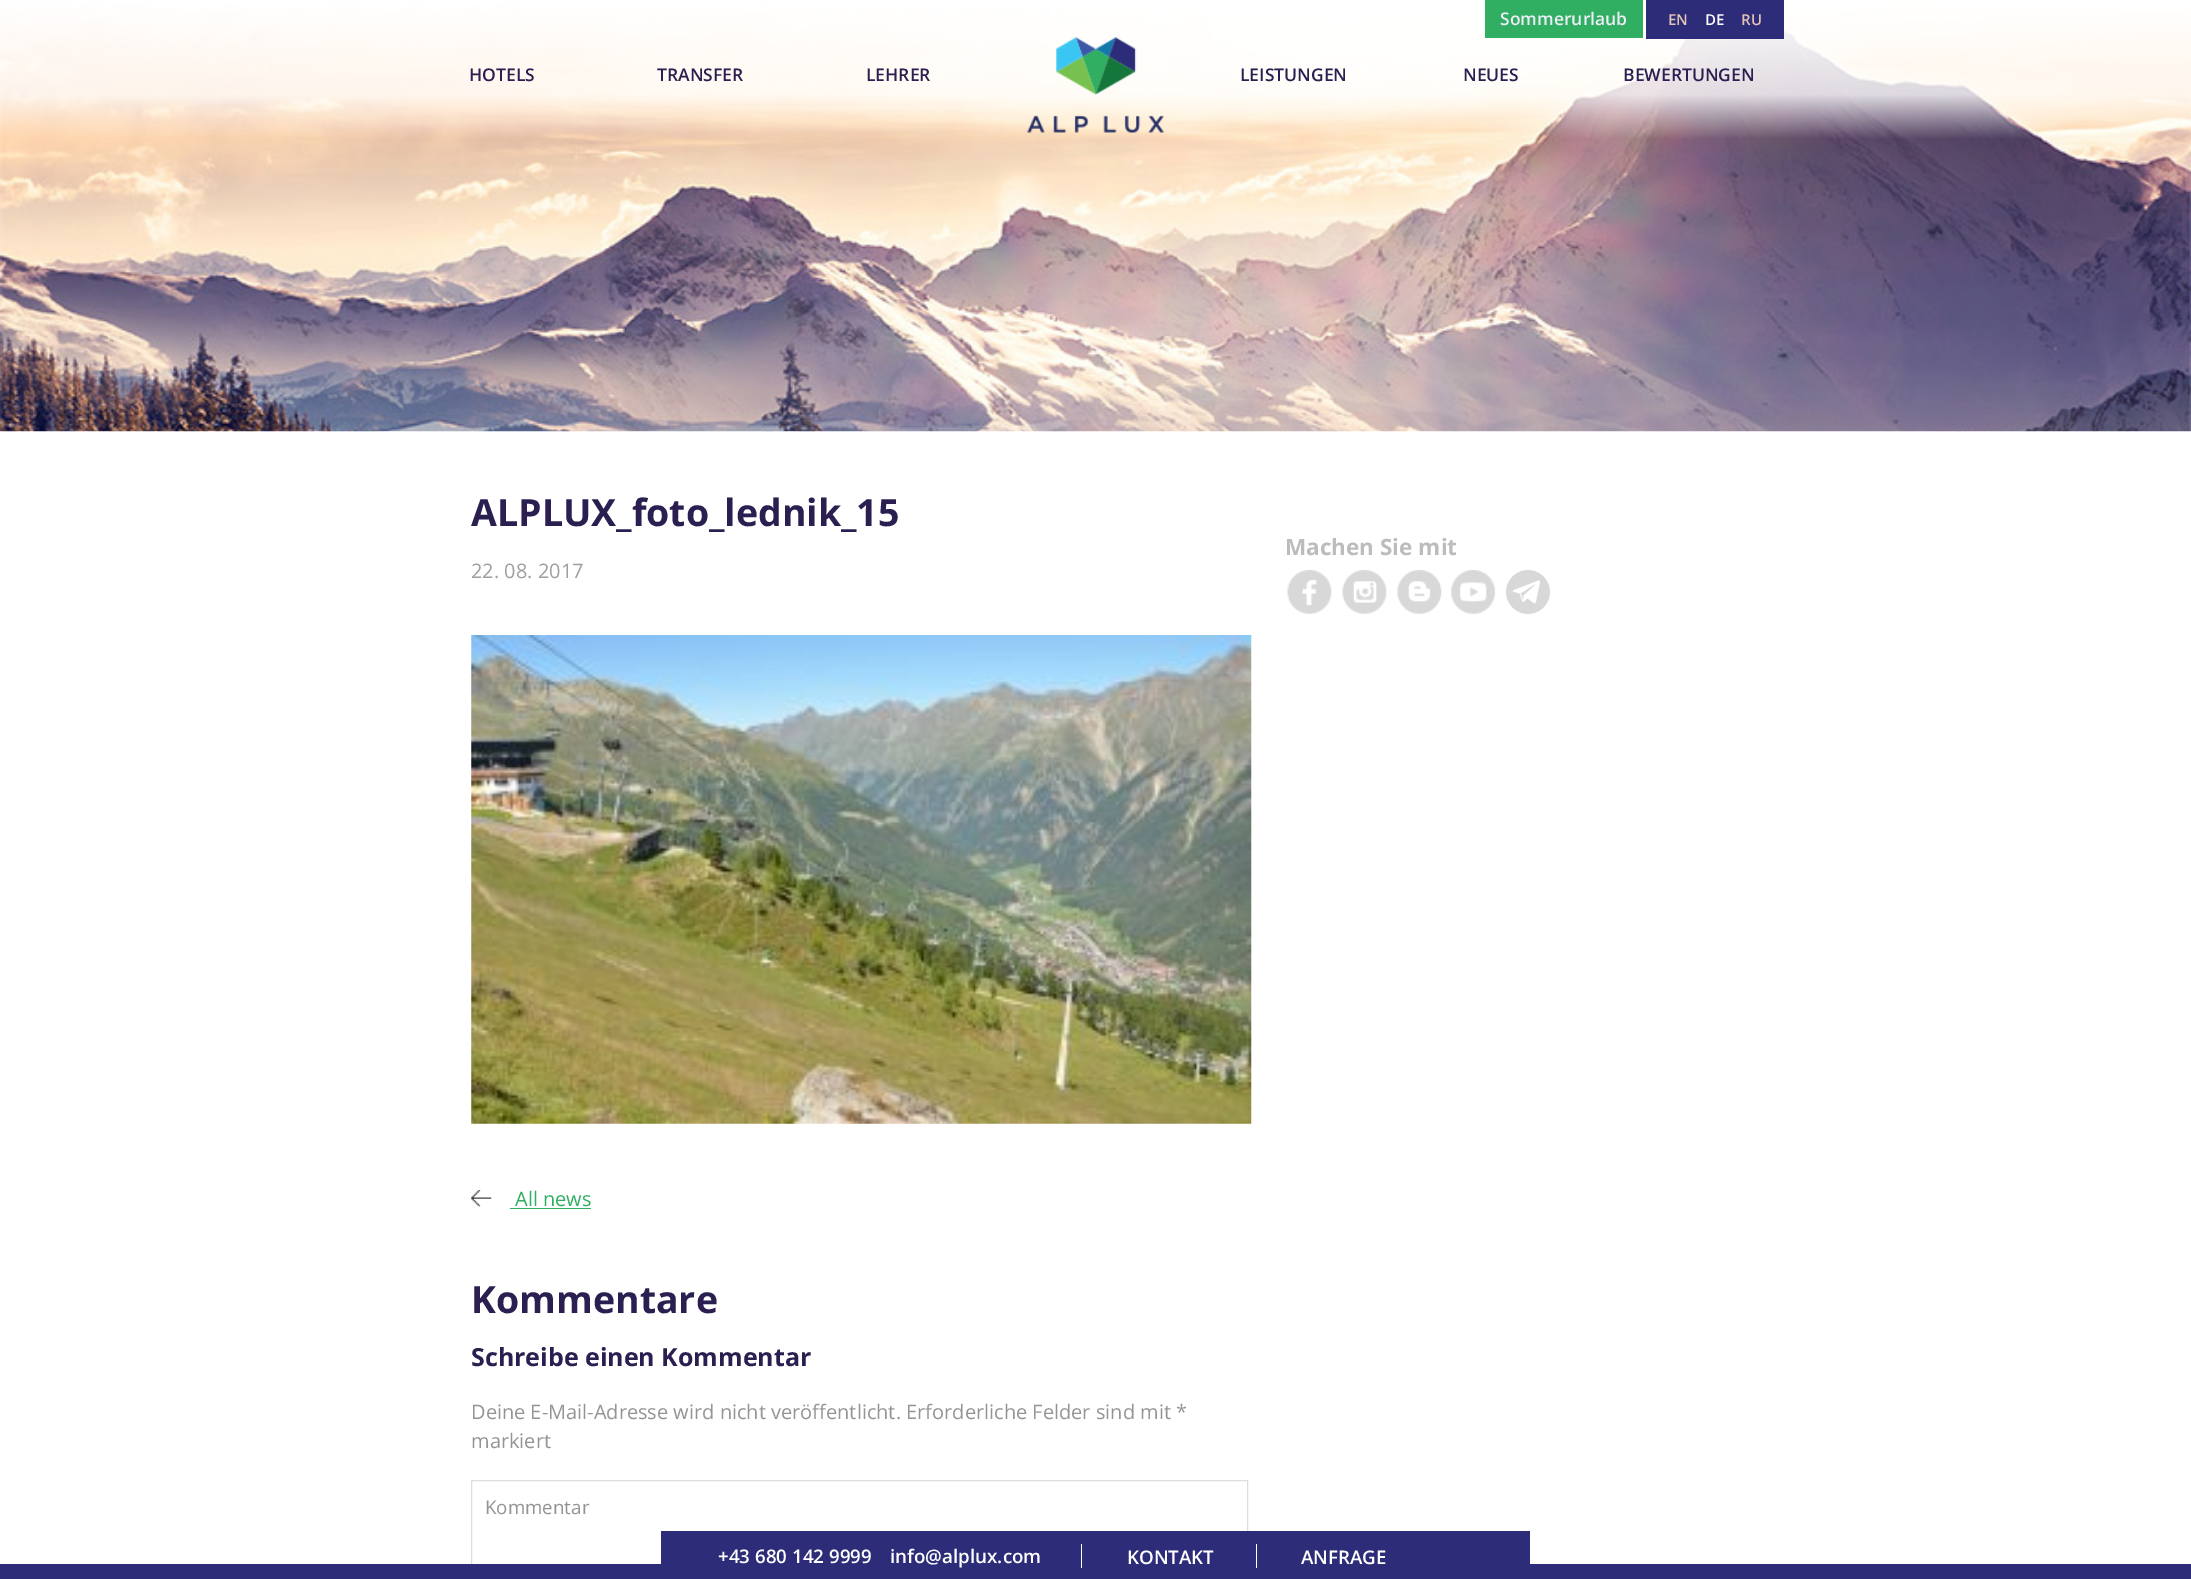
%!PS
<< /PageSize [2191 1579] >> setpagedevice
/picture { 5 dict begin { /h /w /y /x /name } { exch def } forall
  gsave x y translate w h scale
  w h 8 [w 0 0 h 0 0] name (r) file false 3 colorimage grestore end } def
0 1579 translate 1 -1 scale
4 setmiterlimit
1 setgray
0 0 2191 1579 rectfill
(img1.rgb) 0 0 2191 432 picture
0.188 0.686 0.384 setrgbcolor
1485 0 158 38 rectfill
/OpenSans-SemiBold [17.5 0 0 -17.5 0 0] selectfont
0.929 0.929 0.965 setrgbcolor
1500 25 moveto (Sommerurlaub) show
0.176 0.173 0.475 setrgbcolor
1646 0 138 39 rectfill
/OpenSans-SemiBold [15 0 0 -15 0 0] selectfont
0.894 0.769 0.71 setrgbcolor
1668 25 moveto (EN) show
1 setgray
1705 25 moveto (DE) show
0.894 0.769 0.71 setrgbcolor
1741 25 moveto (RU) show
/OpenSans-SemiBold [17.5 0 0 -17.5 0 0] selectfont
0.169 0.118 0.314 setrgbcolor
469 81 moveto (HOTELS) show
657 81 moveto (TRANSFER) show
866 81 moveto (LEHRER) show
(img2.rgb) 1027 37 137 96 picture
1240 81 moveto (LEISTUNGEN) show
1463 81 moveto (NEUES) show
1623 81 moveto (BEWERTUNGEN) show
/OpenSans-Bold [37.5 0 0 -37.5 0 0] selectfont
471 526 moveto (ALPLUX_foto_lednik_15) show
/OpenSans-Regular [20 0 0 -20 0 0] selectfont
0.627 0.62 0.62 setrgbcolor
471 578 moveto (22. 08. 2017) show
(img3.rgb) 471 635 781 489 picture
(img4.rgb) 471 1190 21 17 picture
0.188 0.686 0.384 setrgbcolor
515 1206 moveto (All news) show
510 1208 81 1 rectfill
/OpenSans-Bold [37.5 0 0 -37.5 0 0] selectfont
0.169 0.118 0.314 setrgbcolor
471 1313 moveto (Kommentare) show
/OpenSans-Bold [25 0 0 -25 0 0] selectfont
471 1366 moveto (Schreibe einen Kommentar) show
/OpenSans-Regular [20 0 0 -20 0 0] selectfont
0.584 0.58 0.58 setrgbcolor
471 1419 moveto (Deine E-Mail-Adresse wird nicht veröffentlicht. Erforderliche Felder sind mit *) show
471 1448 moveto (markiert) show
0.867 setgray
471.5 1480.5 776 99 rectstroke
/OpenSans-Regular [18.75 0 0 -18.75 0 0] selectfont
0.584 0.58 0.58 setrgbcolor
485 1514 moveto (Kommentar) show
/OpenSans-Bold [22.5 0 0 -22.5 0 0] selectfont
0.741 0.737 0.737 setrgbcolor
1285 555 moveto (Machen Sie mit) show
(img5.rgb) 1287 570 45 44 picture
(img6.rgb) 1342 570 45 44 picture
(img7.rgb) 1397 570 45 44 picture
(img8.rgb) 1451 570 44 44 picture
(img9.rgb) 1506 570 44 44 picture
0.176 0.173 0.475 setrgbcolor
0 1564 2191 15 rectfill
661 1531 869 33 rectfill
/OpenSans-SemiBold [18.75 0 0 -18.75 0 0] selectfont
1 setgray
718 1563 moveto (+43 680 142 9999) show
890 1563 moveto (info@alplux.com) show
1081 1544 1 24 rectfill
1127 1564 moveto (KONTAKT) show
1256 1544 1 24 rectfill
1301 1564 moveto (ANFRAGE) show
showpage
